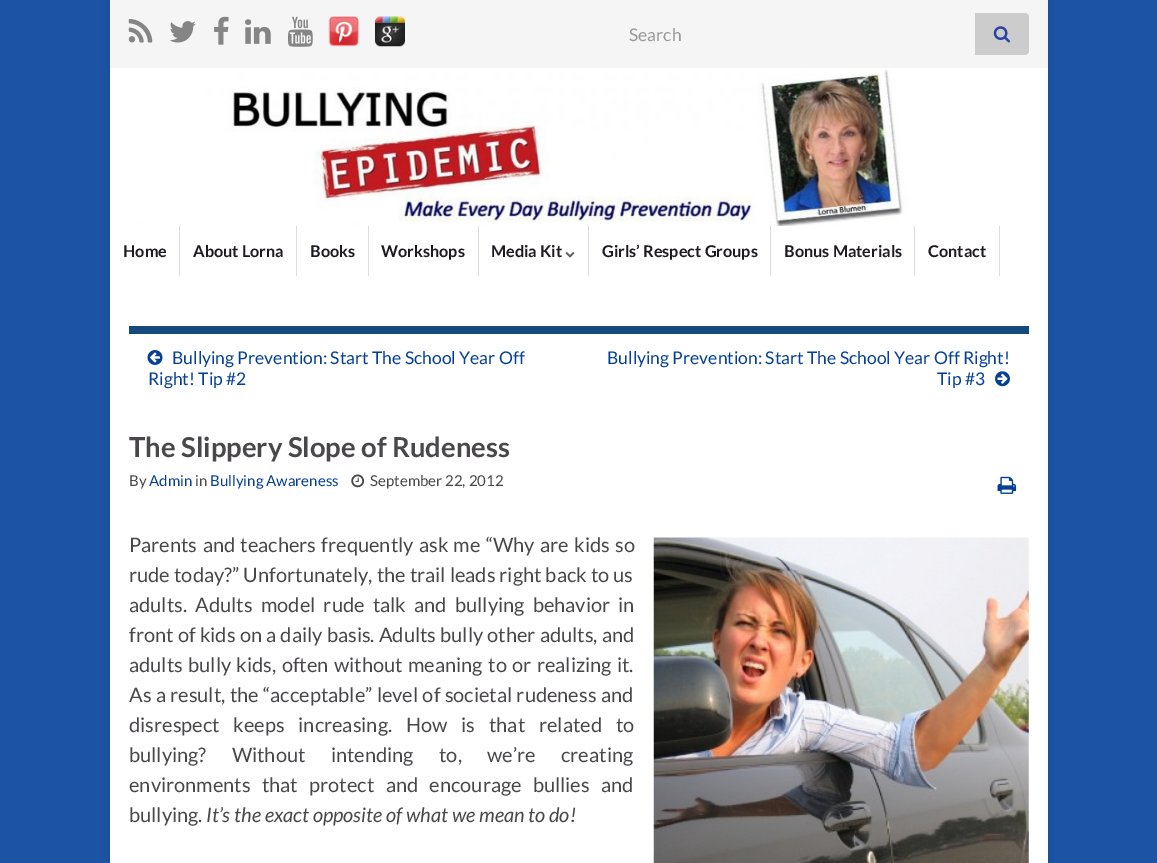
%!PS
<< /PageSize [1157 863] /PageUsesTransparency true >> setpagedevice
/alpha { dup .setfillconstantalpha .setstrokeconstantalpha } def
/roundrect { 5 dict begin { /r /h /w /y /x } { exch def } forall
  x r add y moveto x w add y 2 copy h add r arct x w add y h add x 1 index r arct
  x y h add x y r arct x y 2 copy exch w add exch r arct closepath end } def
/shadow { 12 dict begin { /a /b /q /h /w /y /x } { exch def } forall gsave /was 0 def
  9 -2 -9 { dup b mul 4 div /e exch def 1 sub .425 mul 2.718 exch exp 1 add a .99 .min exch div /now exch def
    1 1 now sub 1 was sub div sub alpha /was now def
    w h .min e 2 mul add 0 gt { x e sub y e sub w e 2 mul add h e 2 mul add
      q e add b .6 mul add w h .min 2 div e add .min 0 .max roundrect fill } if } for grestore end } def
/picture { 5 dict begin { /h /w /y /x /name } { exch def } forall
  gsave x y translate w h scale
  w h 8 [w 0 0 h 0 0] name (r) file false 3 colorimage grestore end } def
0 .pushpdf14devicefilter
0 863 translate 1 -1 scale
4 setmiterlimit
0.11 0.325 0.647 setrgbcolor
0 0 1157 863 rectfill
0 setgray
110 0 938 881 0 6 0.1 shadow
0.961 setgray
110 0 938 68 rectfill
(img1.rgb) 128 19 25 24 picture
(img2.rgb) 169 21 27 22 picture
(img3.rgb) 214 16 15 29 picture
(img4.rgb) 245 19 26 25 picture
(img5.rgb) 288 16 25 31 picture
(img6.rgb) 328 16 31 31 picture
(img7.rgb) 375 16 30 31 picture
/Lato-Regular [17.5 0 0 -17.5 0 0] selectfont
0.6 setgray
629 41 moveto (Search) show
0.8 setgray
newpath 975 13 moveto 1025 13 lineto 1027 13 1029 15 1029 17 curveto 1029 51 lineto 1029 53 1027 55 1025 55 curveto 975 55 lineto closepath fill
(img8.rgb) 993 26 17 17 picture
1 setgray
1047 68 1 158 rectfill
(img9.rgb) 110 68 937 158 picture
110 226 938 637 rectfill
0.867 setgray
179 226 1 50 rectfill
/Lato-Bold [16.25 0 0 -16.25 0 0] selectfont
0.122 0.102 0.133 setrgbcolor
123 257 moveto (Home) show
0.867 setgray
296 226 1 50 rectfill
0.122 0.102 0.133 setrgbcolor
193 257 moveto (About Lorna) show
0.867 setgray
368 226 1 50 rectfill
0.122 0.102 0.133 setrgbcolor
310 257 moveto (Books) show
0.867 setgray
478 226 1 50 rectfill
0.122 0.102 0.133 setrgbcolor
381 257 moveto (Workshops) show
0.867 setgray
588 226 1 50 rectfill
0.122 0.102 0.133 setrgbcolor
491 257 moveto (Media Kit) show
(img10.rgb) 565 252 10 6 picture
0.867 setgray
770 226 1 50 rectfill
0.122 0.102 0.133 setrgbcolor
602 257 moveto (Girls’ Respect Groups) show
0.867 setgray
914 226 1 50 rectfill
0.122 0.102 0.133 setrgbcolor
784 257 moveto (Bonus Materials) show
0.867 setgray
999 226 1 50 rectfill
0.122 0.102 0.133 setrgbcolor
928 257 moveto (Contact) show
0.086 0.286 0.494 setrgbcolor
129 326 900 8 rectfill
(img11.rgb) 147 350 16 15 picture
/Lato-Regular [17.5 0 0 -17.5 0 0] selectfont
0.02 0.251 0.584 setrgbcolor
172 364 moveto (Bullying Prevention: Start The School Year Off) show
148 385 moveto (Right! Tip #2) show
607 364 moveto (Bullying Prevention: Start The School Year Off Right!) show
937 385 moveto (Tip #3) show
(img12.rgb) 995 371 15 16 picture
/Lato-Bold [27.5 0 0 -27.5 0 0] selectfont
0.29 0.278 0.294 setrgbcolor
129 457 moveto (The Slippery Slope of Rudeness) show
/Lato-Regular [15 0 0 -15 0 0] selectfont
129 486 moveto (By) show
0.02 0.251 0.584 setrgbcolor
149 486 moveto (Admin) show
0.29 0.278 0.294 setrgbcolor
195 486 moveto (in) show
0.02 0.251 0.584 setrgbcolor
210 486 moveto (Bullying Awareness) show
(img13.rgb) 351 474 14 14 picture
0.29 0.278 0.294 setrgbcolor
370 486 moveto (September 22, 2012) show
(img14.rgb) 997 476 20 18 picture
/Lato-Regular [20 0 0 -20 0 0] selectfont
129 552 moveto 1.5 0 32 (Parents and teachers frequently ask me “Why are kids so) widthshow
(img15.rgb) 653 537 376 326 picture
129 582 moveto 0.25 0 32 (rude today?” Unfortunately, the trail leads right back to us) widthshow
129 612 moveto 4.5 0 32 (adults. Adults model rude talk and bullying behavior in) widthshow
129 642 moveto 0.4 0 32 (front of kids on a daily basis. Adults bully other adults, and) widthshow
129 672 moveto 1.6 0 32 (adults bully kids, often without meaning to or realizing it.) widthshow
129 702 moveto 0.5 0 32 (As a result, the “acceptable” level of societal rudeness and) widthshow
129 732 moveto 10 0 32 (disrespect keeps increasing. How is that related to) widthshow
129 762 moveto 21.5 0 32 (bullying? Without intending to, we’re creating) widthshow
129 792 moveto 7.5 0 32 (environments that protect and encourage bullies and) widthshow
129 822 moveto (bullying.) show
/Lato-Italic [20 0 0 -20 0 0] selectfont
206 822 moveto (It’s the exact opposite of what we mean to do!) show
.poppdf14devicefilter showpage
